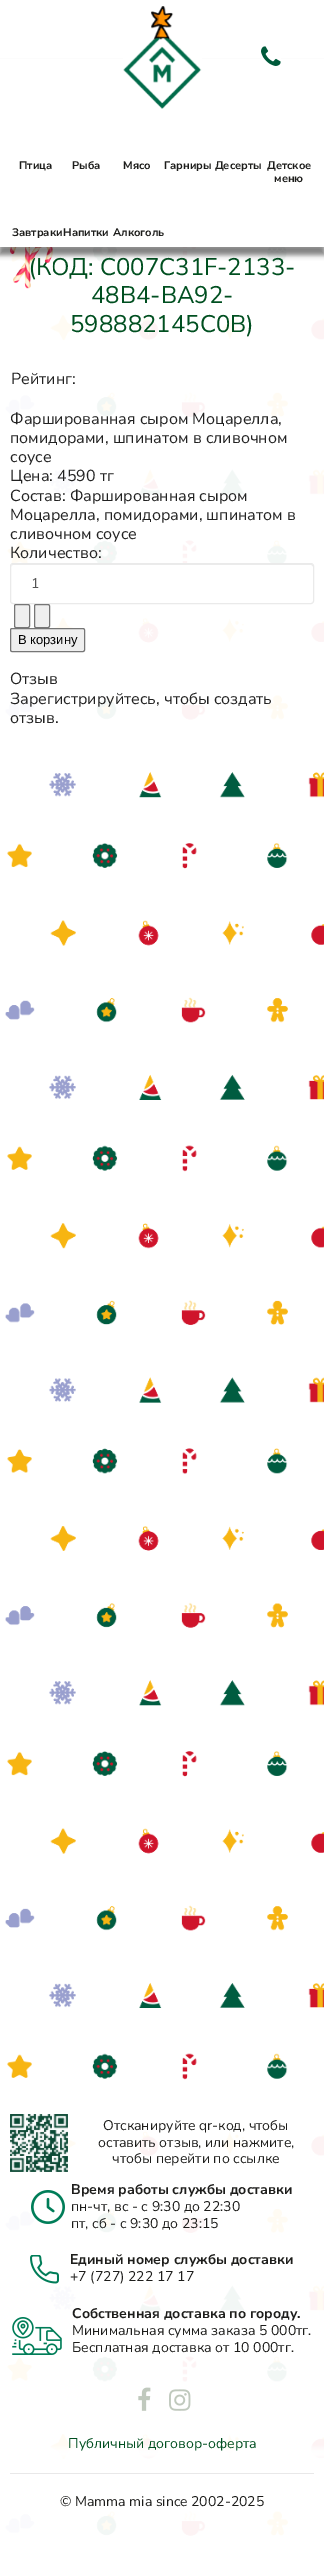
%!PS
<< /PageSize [324 2556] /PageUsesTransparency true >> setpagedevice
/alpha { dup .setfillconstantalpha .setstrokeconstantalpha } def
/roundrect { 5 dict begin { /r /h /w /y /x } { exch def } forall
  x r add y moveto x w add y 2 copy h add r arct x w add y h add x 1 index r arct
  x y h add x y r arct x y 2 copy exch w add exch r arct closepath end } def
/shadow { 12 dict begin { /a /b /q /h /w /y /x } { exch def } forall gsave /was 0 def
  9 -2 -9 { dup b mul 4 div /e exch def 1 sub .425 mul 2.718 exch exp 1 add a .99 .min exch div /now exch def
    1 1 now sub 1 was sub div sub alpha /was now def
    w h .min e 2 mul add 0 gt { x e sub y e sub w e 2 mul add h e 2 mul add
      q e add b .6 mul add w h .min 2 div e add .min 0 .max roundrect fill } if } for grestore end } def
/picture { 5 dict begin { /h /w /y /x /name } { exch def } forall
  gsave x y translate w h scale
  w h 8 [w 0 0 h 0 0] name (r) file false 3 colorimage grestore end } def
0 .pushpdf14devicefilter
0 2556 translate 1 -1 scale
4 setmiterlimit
1 setgray
0 0 324 2556 rectfill
(img1.rgb) 5 247 319 2289 picture
0.95 alpha
5 247 319 473 rectfill
/NunitoSans-Regular [24 0 0 -24 0 0] selectfont
1 alpha
0 0.31 0.125 setrgbcolor
28 275 moveto (\(КОД: C007C31F-2133-) show
(img4.rgb) 10 247 43 42 picture
0 setgray
-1 64 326 191 0 2.5 0.5 shadow
1 setgray
0 115 324 132 rectfill
gsave
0 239 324 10 rectclip
-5 61 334 183 0 2.5 0.95 shadow
grestore
/NunitoSans-Bold [11 0 0 -11 0 0] selectfont
0.114 0.114 0.106 setrgbcolor
19 169 moveto (Птица) show
72 169 moveto (Рыба) show
123 169 moveto (Мясо) show
164 169 moveto (Гарниры Десерты) show
267 169 moveto (Детское) show
274 182 moveto (меню) show
12 236 moveto (Завтраки) show
63 236 moveto (Напитки) show
113 236 moveto (Алкоголь) show
1 setgray
0 59 324 56 rectfill
(img2.rgb) 123 6 79 103 picture
(img3.rgb) 261 46 20 20 picture
/NunitoSans-Regular [24 0 0 -24 0 0] selectfont
0 0.31 0.125 setrgbcolor
91 303 moveto (48B4-BA92-) show
70 332 moveto (598882145C0B\)) show
/NunitoSans-Regular [16 0 0 -16 0 0] selectfont
0.133 setgray
11 384 moveto (Рейтинг:) show
10 424 moveto (Фаршированная сыром Моцарелла,) show
10 443 moveto (помидорами, шпинатом в сливочном) show
10 462 moveto (соусе) show
10 481 moveto (Цена: 4590 тг) show
10 501 moveto (Состав: Фаршированная сыром) show
10 520 moveto (Моцарелла, помидорами, шпинатом в) show
10 539 moveto (сливочном соусе) show
10 558 moveto (Количество:) show
1 setgray
10 563 304 41 3 roundrect fill
0.925 setgray
newpath 13 565 moveto 311 565 lineto 312 565 313 566 313 567 curveto 313 566 313 564 311 564 curveto 12 564 lineto 11 567 lineto 11 566 12 565 13 565 curveto closepath fill
0.918 setgray
10.5 563.5 303 40 2.5 roundrect stroke
/NunitoSans-Regular [14 0 0 -14 0 0] selectfont
0.333 setgray
31 588 moveto (1) show
0.937 setgray
14.5 604.5 15 23 1.5 roundrect gsave fill grestore
0.463 setgray
stroke
0.937 setgray
34.5 604.5 15 23 1.5 roundrect gsave fill grestore
0.463 setgray
stroke
0.937 setgray
10.5 628.5 74 23 1.5 roundrect gsave fill grestore
0.463 setgray
stroke
/LiberationSans-Regular [13 0 0 -13 0 0] selectfont
0 setgray
18 644 moveto (В корзину) show
/NunitoSans-Regular [16 0 0 -16 0 0] selectfont
0.133 setgray
10 684 moveto (Отзыв) show
10 704 moveto (Зарегистрируйтесь, чтобы создать) show
10 723 moveto (отзыв.) show
gsave
newpath 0 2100 moveto 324 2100 lineto 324 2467 lineto 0 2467 lineto closepath 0 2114 moveto 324 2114 lineto 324 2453 lineto 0 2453 lineto closepath eoclip newpath
1 setgray
-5 2109 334 349 0 2.5 0.95 shadow
grestore
0.95 alpha
1 setgray
5 2131 319 322 rectfill
1 alpha
(img5.rgb) 10 2114 58 58 picture
/NunitoSans-Regular [14 0 0 -14 0 0] selectfont
0.114 0.114 0.106 setrgbcolor
103 2130 moveto (Отсканируйте qr-код, чтобы) show
98 2147 moveto (оставить отзыв, или нажмите,) show
112 2163 moveto (чтобы перейти по ссылке) show
(img6.rgb) 31 2190 34 34 picture
/NunitoSans-Bold [14 0 0 -14 0 0] selectfont
71 2194 moveto (Время работы службы доставки) show
/NunitoSans-Regular [14 0 0 -14 0 0] selectfont
71 2211 moveto (пн-чт, вс - с 9:30 до 22:30) show
71 2228 moveto (пт, сб - с 9:30 до 23:15) show
(img7.rgb) 30 2255 29 29 picture
/NunitoSans-Bold [14 0 0 -14 0 0] selectfont
70 2264 moveto (Единый номер службы доставки) show
/NunitoSans-Regular [14 0 0 -14 0 0] selectfont
70 2281 moveto (+7 \(727\) 222 17 17) show
(img8.rgb) 12 2317 50 38 picture
/NunitoSans-Bold [14 0 0 -14 0 0] selectfont
72 2318 moveto (Собственная доставка по городу.) show
/NunitoSans-Regular [14 0 0 -14 0 0] selectfont
72 2335 moveto (Минимальная сумма заказа 5 000тг.) show
72 2352 moveto (Бесплатная доставка от 10 000тг.) show
(img9.rgb) 138 2387 13 24 picture
(img10.rgb) 169 2389 22 22 picture
gsave
newpath 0 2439 moveto 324 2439 lineto 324 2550 lineto 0 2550 lineto closepath 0 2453 moveto 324 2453 lineto 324 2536 lineto 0 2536 lineto closepath eoclip newpath
1 setgray
-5 2448 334 93 0 2.5 0.95 shadow
grestore
0 0.31 0.125 setrgbcolor
68 2448 moveto (Публичный договор-оферта) show
0.95 alpha
1 setgray
5 2453 319 83 rectfill
1 alpha
0.91 setgray
10 2473 304 1 rectfill
0.114 0.114 0.106 setrgbcolor
60 2506 moveto (© Mamma mia since 2002-2025) show
.poppdf14devicefilter showpage
